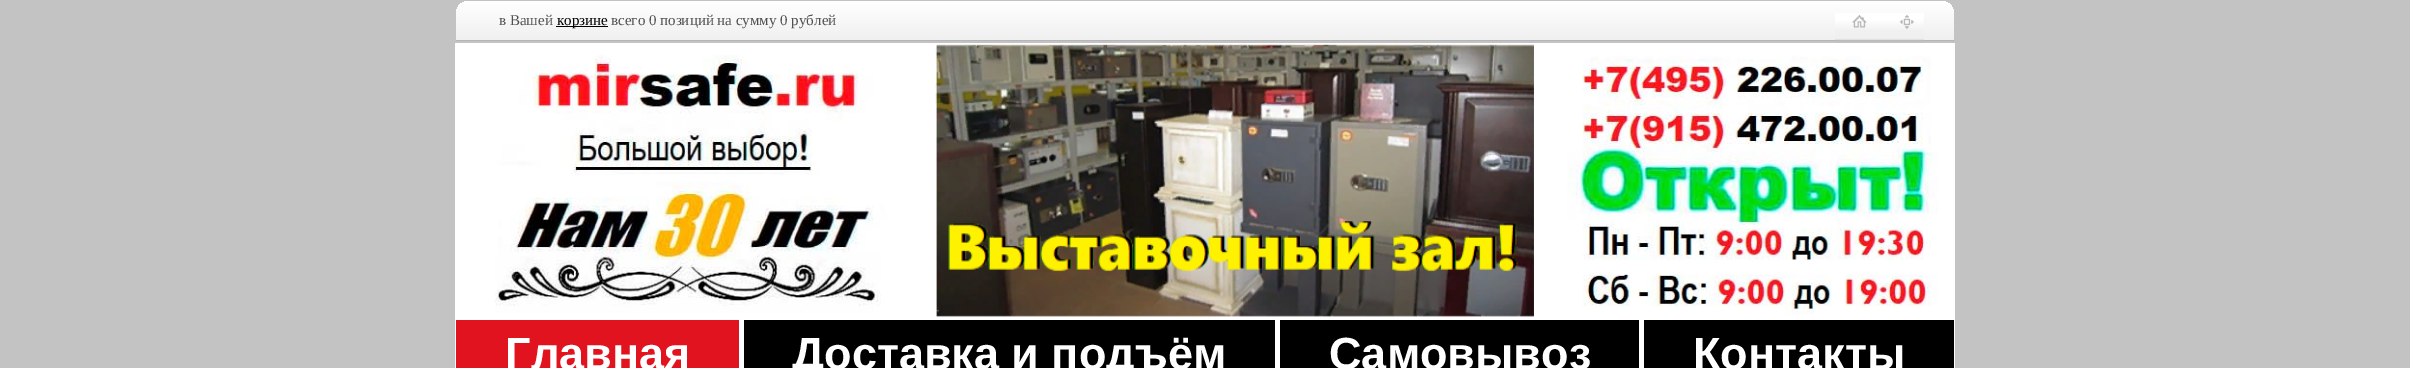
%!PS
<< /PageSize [2410 368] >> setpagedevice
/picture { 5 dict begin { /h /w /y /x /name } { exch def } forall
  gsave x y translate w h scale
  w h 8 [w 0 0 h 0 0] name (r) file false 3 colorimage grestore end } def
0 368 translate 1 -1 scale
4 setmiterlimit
0.765 setgray
0 0 2410 368 rectfill
gsave newpath 469 1 moveto 1941 1 lineto 1948 1 1954 7 1954 14 curveto 1954 40 lineto 456 40 lineto 456 14 lineto 456 7 462 1 469 1 curveto closepath clip newpath
<< /ShadingType 2 /ColorSpace /DeviceRGB /Coords [1205 40 1205 1.2] /Extend [true true] /Function << /FunctionType 2 /Domain [0 1] /C0 [0.941 0.941 0.941] /C1 [1 1 1] /N 1 >> >> shfill grestore
0.71 setgray
456 40 1498 1 rectfill
/LiberationSerif-Regular [15 0 0 -15 0 0] selectfont
0.314 setgray
499 25 moveto (в Вашей) show
0 setgray
556 26 52 1 rectfill
557 25 moveto (корзине) show
0.314 setgray
611 25 moveto (всего 0 позиций на сумму 0 рублей) show
(img1.rgb) 1835 13 50 29 picture
(img2.rgb) 1885 13 39 29 picture
1 setgray
455 43 1500 325 rectfill
(img4.rgb) 495 55 1443 260 picture
(img3.rgb) 935 44 599 273 picture
0.882 0.075 0.118 setrgbcolor
456 320 283 48 rectfill
/LiberationSans-Bold [45 0 0 -45 0 0] selectfont
1 setgray
505 369 moveto (Главная) show
0 setgray
744 320 531 48 rectfill
1 setgray
792 369 moveto (Доставка и подъём) show
0 setgray
1280 320 359 48 rectfill
1 setgray
1329 369 moveto (Самовывоз) show
0 setgray
1644 320 310 48 rectfill
1 setgray
1693 369 moveto (Контакты) show
showpage
